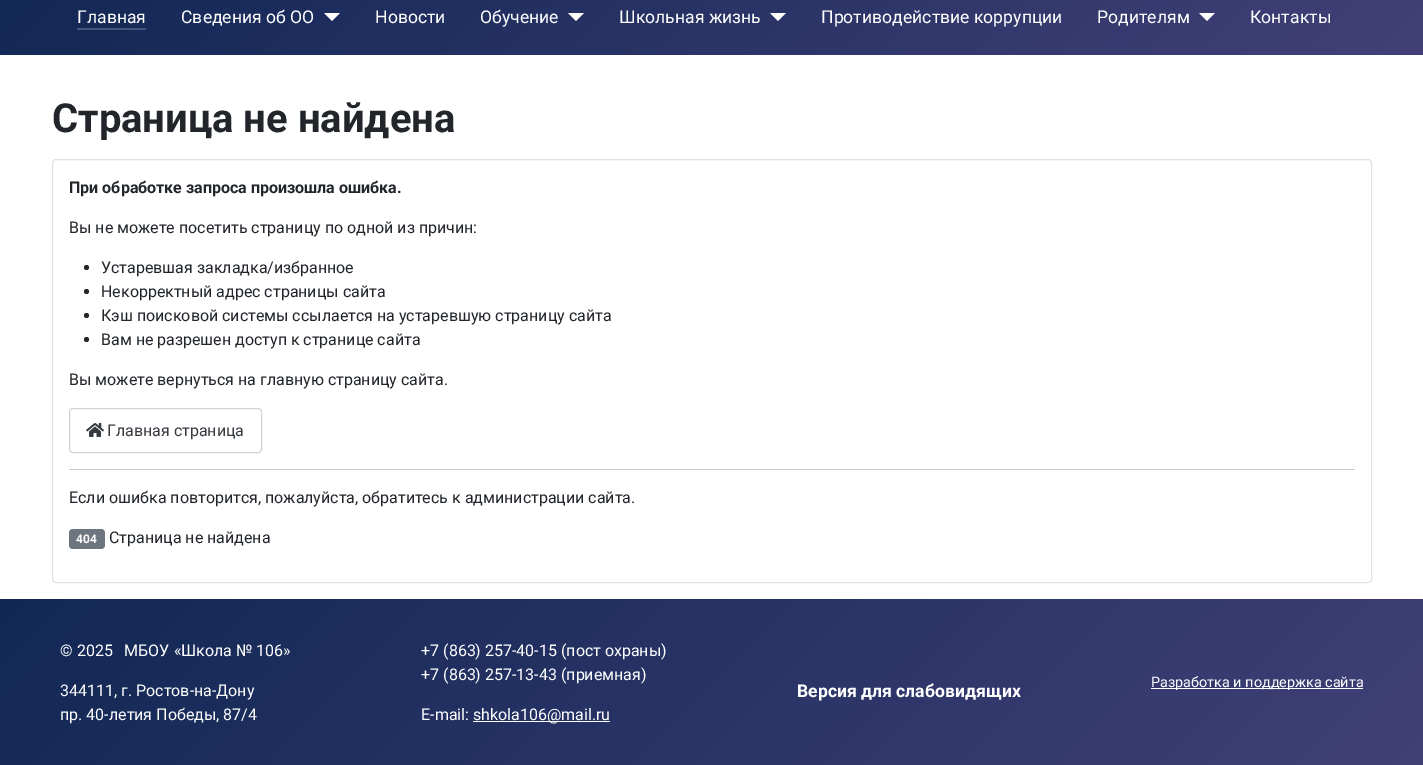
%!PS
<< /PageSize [1423 765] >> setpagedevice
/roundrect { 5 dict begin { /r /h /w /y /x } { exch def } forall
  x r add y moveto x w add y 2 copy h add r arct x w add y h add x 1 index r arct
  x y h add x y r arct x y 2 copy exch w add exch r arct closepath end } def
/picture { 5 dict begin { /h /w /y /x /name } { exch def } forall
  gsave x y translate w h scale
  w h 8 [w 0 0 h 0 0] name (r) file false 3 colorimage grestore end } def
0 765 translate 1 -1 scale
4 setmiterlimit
1 setgray
0 0 1423 765 rectfill
gsave newpath 0 0 moveto 1423 0 lineto 1423 55 lineto 0 55 lineto closepath clip newpath
<< /ShadingType 2 /ColorSpace /DeviceRGB /Coords [337 -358 1086 392] /Extend [true true] /Function << /FunctionType 2 /Domain [0 1] /C0 [0.067 0.157 0.333] /C1 [0.259 0.251 0.467] /N 1 >> >> shfill grestore
/Roboto-Regular [17.6 0 0 -17.6 0 0] selectfont
77 23 moveto (Главная) show
0.271 0.333 0.478 setrgbcolor
77 28 69 2 rectfill
1 setgray
181 23 moveto (Сведения об ОО) show
newpath 324 13 moveto 340 13 lineto 332 21 lineto closepath fill
375 23 moveto (Новости) show
480 23 moveto (Обучение) show
newpath 568 13 moveto 584 13 lineto 576 21 lineto closepath fill
619 23 moveto (Школьная жизнь) show
newpath 770 13 moveto 786 13 lineto 778 21 lineto closepath fill
821 23 moveto (Противодействие коррупции) show
1097 23 moveto (Родителям) show
newpath 1199 13 moveto 1215 13 lineto 1207 21 lineto closepath fill
1250 23 moveto (Контакты) show
/Roboto-Bold [40 0 0 -40 0 0] selectfont
0.133 0.149 0.165 setrgbcolor
52 132 moveto (Страница не найдена) show
0.875 0.89 0.906 setrgbcolor
52.5 159.5 1319 423 3.5 roundrect stroke
/Roboto-Bold [16 0 0 -16 0 0] selectfont
0.133 0.149 0.165 setrgbcolor
69 193 moveto (При обработке запроса произошла ошибка.) show
/Roboto-Regular [16 0 0 -16 0 0] selectfont
69 233 moveto (Вы не можете посетить страницу по одной из причин:) show
newpath 86.5 267.5 2.5 0 360 arc closepath fill
101 273 moveto (Устаревшая закладка/избранное) show
newpath 86.5 291.5 2.5 0 360 arc closepath fill
101 297 moveto (Некорректный адрес страницы сайта) show
newpath 86.5 315.5 2.5 0 360 arc closepath fill
101 321 moveto (Кэш поисковой системы ссылается на устаревшую страницу сайта) show
newpath 86.5 339.5 2.5 0 360 arc closepath fill
101 345 moveto (Вам не разрешен доступ к странице сайта) show
69 385 moveto (Вы можете вернуться на главную страницу сайта.) show
0.808 0.831 0.855 setrgbcolor
69.5 408.5 192 44 3.5 roundrect stroke
(img1.rgb) 86 423 18 14 picture
0.208 0.231 0.255 setrgbcolor
107 436 moveto (Главная страница) show
0.784 0.788 0.792 setrgbcolor
69 469 1286 1 rectfill
0.133 0.149 0.165 setrgbcolor
69 503 moveto (Если ошибка повторится, пожалуйста, обратитесь к администрации сайта.) show
0.427 0.459 0.494 setrgbcolor
69 529 36 20 4 roundrect fill
/Roboto-Bold [12 0 0 -12 0 0] selectfont
1 setgray
76 543 moveto (404) show
/Roboto-Regular [16 0 0 -16 0 0] selectfont
0.133 0.149 0.165 setrgbcolor
109 543 moveto (Страница не найдена) show
gsave newpath 0 599 moveto 1423 599 lineto 1423 765 lineto 0 765 lineto closepath clip newpath
<< /ShadingType 2 /ColorSpace /DeviceRGB /Coords [310 289 1113 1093] /Extend [true true] /Function << /FunctionType 2 /Domain [0 1] /C0 [0.067 0.157 0.333] /C1 [0.259 0.251 0.467] /N 1 >> >> shfill grestore
1 setgray
60 656 moveto (© 2025   МБОУ «Школа № 106») show
60 696 moveto (344111, г. Ростов-на-Дону) show
60 720 moveto (пр. 40-летия Победы, 87/4) show
421 656 moveto (+7 \(863\) 257-40-15 \(пост охраны\)) show
421 680 moveto (+7 \(863\) 257-13-43 \(приемная\)) show
421 720 moveto (E-mail:) show
473 721 137 1 rectfill
473 720 moveto (shkola106@mail.ru) show
/Roboto-Bold [17.6 0 0 -17.6 0 0] selectfont
797 697 moveto (Версия для слабовидящих) show
1151 688 212 1 rectfill
/Roboto-Regular [14.4 0 0 -14.4 0 0] selectfont
1151 687 moveto (Разработка и поддержка сайта) show
showpage
